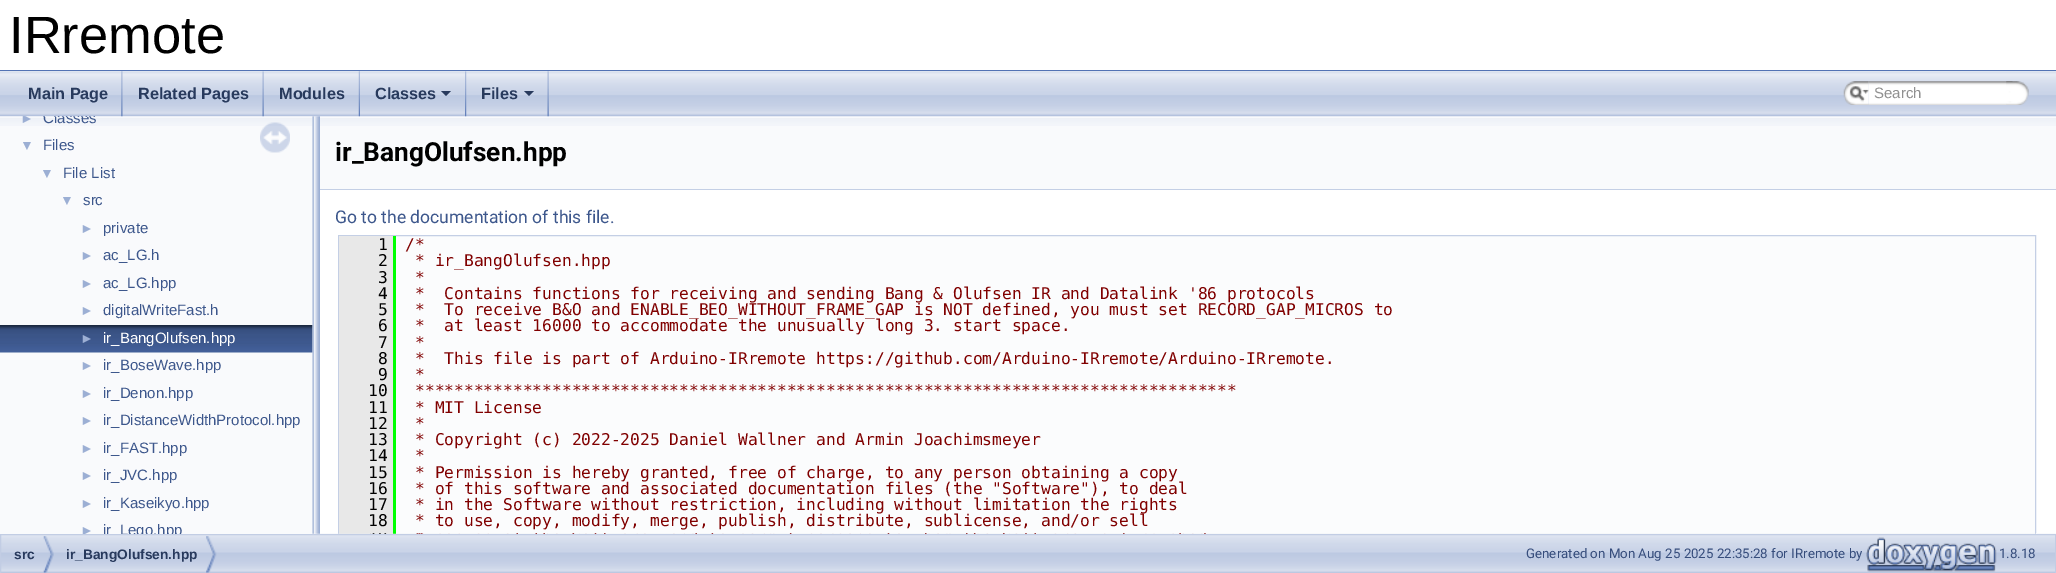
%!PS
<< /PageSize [2056 573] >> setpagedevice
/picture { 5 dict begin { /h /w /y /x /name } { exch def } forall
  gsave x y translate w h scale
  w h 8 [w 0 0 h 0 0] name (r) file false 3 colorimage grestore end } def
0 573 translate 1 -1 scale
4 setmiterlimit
1 setgray
0 0 2056 573 rectfill
0.325 0.451 0.706 setrgbcolor
0 70 2056 1 rectfill
/LiberationSans-Regular [52.5 0 0 -52.5 0 0] selectfont
0 setgray
9 53 moveto (IRremote) show
0.984 0.988 0.992 setrgbcolor
396 236 1639 298 rectfill
0.769 0.812 0.898 setrgbcolor
338.5 235.5 1697 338 rectstroke
0 1 0 setrgbcolor
393 236 3 294 rectfill
0.91 setgray
339 528 56 6 rectfill
0 1 0 setrgbcolor
393 528 3 6 rectfill
(img16.rgb) 1 533 2055 40 picture
0.976 0.98 0.988 setrgbcolor
0 116 313 418 rectfill
(img11.rgb) 0 116 313 10 picture
/LiberationSans-Regular [14 0 0 -14 0 0] selectfont
0.612 0.686 0.831 setrgbcolor
20 123 moveto (►) show
/LiberationSans-Regular [15 0 0 -15 0 0] selectfont
0.239 0.341 0.549 setrgbcolor
43 123 moveto (Classes) show
(img12.rgb) 0 325 313 28 picture
(img14.rgb) 312 116 8 418 picture
0.976 0.98 0.988 setrgbcolor
320 116 1736 73 rectfill
(img1.rgb) 0 71 2056 46 picture
(img2.rgb) 121 71 2 46 picture
/LiberationSans-Bold [16.25 0 0 -16.25 0 0] selectfont
0.157 0.227 0.365 setrgbcolor
28 99 moveto (Main Page) show
(img3.rgb) 262 71 2 46 picture
138 99 moveto (Related Pages) show
(img4.rgb) 358 71 2 46 picture
279 99 moveto (Modules) show
(img5.rgb) 465 71 2 46 picture
375 99 moveto (Classes) show
newpath 441 91 moveto 451 91 lineto 446 96 lineto closepath fill
(img6.rgb) 547 71 2 46 picture
481 99 moveto (Files) show
newpath 524 91 moveto 534 91 lineto 529 96 lineto closepath fill
(img7.rgb) 1843 81 26 24 picture
(img8.rgb) 1849 86 20 16 picture
(img9.rgb) 1868 81 145 24 picture
/LiberationSans-Regular [15 0 0 -15 0 0] selectfont
0.565 setgray
1874 98 moveto (Search) show
(img10.rgb) 2006 81 23 24 picture
/LiberationSans-Regular [14 0 0 -14 0 0] selectfont
0.612 0.686 0.831 setrgbcolor
20 150 moveto (▼) show
/LiberationSans-Regular [15 0 0 -15 0 0] selectfont
0.239 0.341 0.549 setrgbcolor
43 150 moveto (Files) show
/LiberationSans-Regular [14 0 0 -14 0 0] selectfont
0.612 0.686 0.831 setrgbcolor
40 178 moveto (▼) show
/LiberationSans-Regular [15 0 0 -15 0 0] selectfont
0.239 0.341 0.549 setrgbcolor
63 178 moveto (File List) show
/LiberationSans-Regular [14 0 0 -14 0 0] selectfont
0.612 0.686 0.831 setrgbcolor
60 205 moveto (▼) show
/LiberationSans-Regular [15 0 0 -15 0 0] selectfont
0.239 0.341 0.549 setrgbcolor
83 205 moveto (src) show
/LiberationSans-Regular [14 0 0 -14 0 0] selectfont
0.612 0.686 0.831 setrgbcolor
80 233 moveto (►) show
/LiberationSans-Regular [15 0 0 -15 0 0] selectfont
0.239 0.341 0.549 setrgbcolor
103 233 moveto (private) show
/LiberationSans-Regular [14 0 0 -14 0 0] selectfont
0.612 0.686 0.831 setrgbcolor
80 260 moveto (►) show
/LiberationSans-Regular [15 0 0 -15 0 0] selectfont
0.239 0.341 0.549 setrgbcolor
103 260 moveto (ac_LG.h) show
/LiberationSans-Regular [14 0 0 -14 0 0] selectfont
0.612 0.686 0.831 setrgbcolor
80 288 moveto (►) show
/LiberationSans-Regular [15 0 0 -15 0 0] selectfont
0.239 0.341 0.549 setrgbcolor
103 288 moveto (ac_LG.hpp) show
/LiberationSans-Regular [14 0 0 -14 0 0] selectfont
0.612 0.686 0.831 setrgbcolor
80 315 moveto (►) show
/LiberationSans-Regular [15 0 0 -15 0 0] selectfont
0.239 0.341 0.549 setrgbcolor
103 315 moveto (digitalWriteFast.h) show
/LiberationSans-Regular [14 0 0 -14 0 0] selectfont
0.612 0.686 0.831 setrgbcolor
80 343 moveto (►) show
/LiberationSans-Regular [15 0 0 -15 0 0] selectfont
1 setgray
103 343 moveto (ir_BangOlufsen.hpp) show
/LiberationSans-Regular [14 0 0 -14 0 0] selectfont
0.612 0.686 0.831 setrgbcolor
80 370 moveto (►) show
/LiberationSans-Regular [15 0 0 -15 0 0] selectfont
0.239 0.341 0.549 setrgbcolor
103 370 moveto (ir_BoseWave.hpp) show
/LiberationSans-Regular [14 0 0 -14 0 0] selectfont
0.612 0.686 0.831 setrgbcolor
80 398 moveto (►) show
/LiberationSans-Regular [15 0 0 -15 0 0] selectfont
0.239 0.341 0.549 setrgbcolor
103 398 moveto (ir_Denon.hpp) show
/LiberationSans-Regular [14 0 0 -14 0 0] selectfont
0.612 0.686 0.831 setrgbcolor
80 425 moveto (►) show
/LiberationSans-Regular [15 0 0 -15 0 0] selectfont
0.239 0.341 0.549 setrgbcolor
103 425 moveto (ir_DistanceWidthProtocol.hpp) show
/LiberationSans-Regular [14 0 0 -14 0 0] selectfont
0.612 0.686 0.831 setrgbcolor
80 453 moveto (►) show
/LiberationSans-Regular [15 0 0 -15 0 0] selectfont
0.239 0.341 0.549 setrgbcolor
103 453 moveto (ir_FAST.hpp) show
/LiberationSans-Regular [14 0 0 -14 0 0] selectfont
0.612 0.686 0.831 setrgbcolor
80 480 moveto (►) show
/LiberationSans-Regular [15 0 0 -15 0 0] selectfont
0.239 0.341 0.549 setrgbcolor
103 480 moveto (ir_JVC.hpp) show
/LiberationSans-Regular [14 0 0 -14 0 0] selectfont
0.612 0.686 0.831 setrgbcolor
80 508 moveto (►) show
/LiberationSans-Regular [15 0 0 -15 0 0] selectfont
0.239 0.341 0.549 setrgbcolor
103 508 moveto (ir_Kaseikyo.hpp) show
gsave
0 116 313 418 rectclip
/LiberationSans-Regular [14 0 0 -14 0 0] selectfont
0.612 0.686 0.831 setrgbcolor
80 535 moveto (►) show
/LiberationSans-Regular [15 0 0 -15 0 0] selectfont
0.239 0.341 0.549 setrgbcolor
103 535 moveto (ir_Lego.hpp) show
grestore
(img13.rgb) 260 122 30 31 picture
(img15.rgb) 320 118 1736 8 picture
0.769 0.812 0.898 setrgbcolor
320 189 1736 1 rectfill
/Roboto-Bold [26.25 0 0 -26.25 0 0] selectfont
0 setgray
335 161 moveto (ir_BangOlufsen.hpp) show
/Roboto-Regular [17.5 0 0 -17.5 0 0] selectfont
0.239 0.341 0.549 setrgbcolor
335 223 moveto (Go to the documentation of this file.) show
0.91 setgray
339 236 54 292 rectfill
/DejaVuSansMono-Regular [16.25 0 0 -16.25 0 0] selectfont
0 setgray
378 250 moveto (1) show
0.502 0 0 setrgbcolor
405 250 moveto (/*) show
0 setgray
378 266 moveto (2) show
0.502 0 0 setrgbcolor
415 266 moveto (* ir_BangOlufsen.hpp) show
0 setgray
378 283 moveto (3) show
0.502 0 0 setrgbcolor
415 283 moveto (*) show
0 setgray
378 299 moveto (4) show
0.502 0 0 setrgbcolor
415 299 moveto (*  Contains functions for receiving and sending Bang & Olufsen IR and Datalink '86 protocols) show
0 setgray
378 315 moveto (5) show
0.502 0 0 setrgbcolor
415 315 moveto (*  To receive B&O and ENABLE_BEO_WITHOUT_FRAME_GAP is NOT defined, you must set RECORD_GAP_MICROS to) show
0 setgray
378 331 moveto (6) show
0.502 0 0 setrgbcolor
415 331 moveto (*  at least 16000 to accommodate the unusually long 3. start space.) show
0 setgray
378 348 moveto (7) show
0.502 0 0 setrgbcolor
415 348 moveto (*) show
0 setgray
378 364 moveto (8) show
0.502 0 0 setrgbcolor
415 364 moveto (*  This file is part of Arduino-IRremote https://github.com/Arduino-IRremote/Arduino-IRremote.) show
0 setgray
378 380 moveto (9) show
0.502 0 0 setrgbcolor
415 380 moveto (*) show
0 setgray
368 396 moveto (10) show
0.502 0 0 setrgbcolor
415 396 moveto (************************************************************************************) show
0 setgray
368 413 moveto (11) show
0.502 0 0 setrgbcolor
415 413 moveto (* MIT License) show
0 setgray
368 429 moveto (12) show
0.502 0 0 setrgbcolor
415 429 moveto (*) show
0 setgray
368 445 moveto (13) show
0.502 0 0 setrgbcolor
415 445 moveto (* Copyright \(c\) 2022-2025 Daniel Wallner and Armin Joachimsmeyer) show
0 setgray
368 461 moveto (14) show
0.502 0 0 setrgbcolor
415 461 moveto (*) show
0 setgray
368 478 moveto (15) show
0.502 0 0 setrgbcolor
415 478 moveto (* Permission is hereby granted, free of charge, to any person obtaining a copy) show
0 setgray
368 494 moveto (16) show
0.502 0 0 setrgbcolor
415 494 moveto (* of this software and associated documentation files \(the "Software"\), to deal) show
0 setgray
368 510 moveto (17) show
0.502 0 0 setrgbcolor
415 510 moveto (* in the Software without restriction, including without limitation the rights) show
0 setgray
368 526 moveto (18) show
0.502 0 0 setrgbcolor
415 526 moveto (* to use, copy, modify, merge, publish, distribute, sublicense, and/or sell) show
0.761 0.804 0.894 setrgbcolor
0.5 534.5 2055 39 rectstroke
(img17.rgb) 43 536 11 37 picture
/LiberationSans-Bold [13.75 0 0 -13.75 0 0] selectfont
0.157 0.227 0.365 setrgbcolor
14 559 moveto (src) show
(img18.rgb) 206 536 11 37 picture
66 559 moveto (ir_BangOlufsen.hpp) show
/Roboto-Regular [13.3 0 0 -13.3 0 0] selectfont
0.212 0.302 0.486 setrgbcolor
1526 558 moveto (Generated on Mon Aug 25 2025 22:35:28 for IRremote by) show
(img19.rgb) 1866 537 131 35 picture
1999 558 moveto (1.8.18) show
showpage
